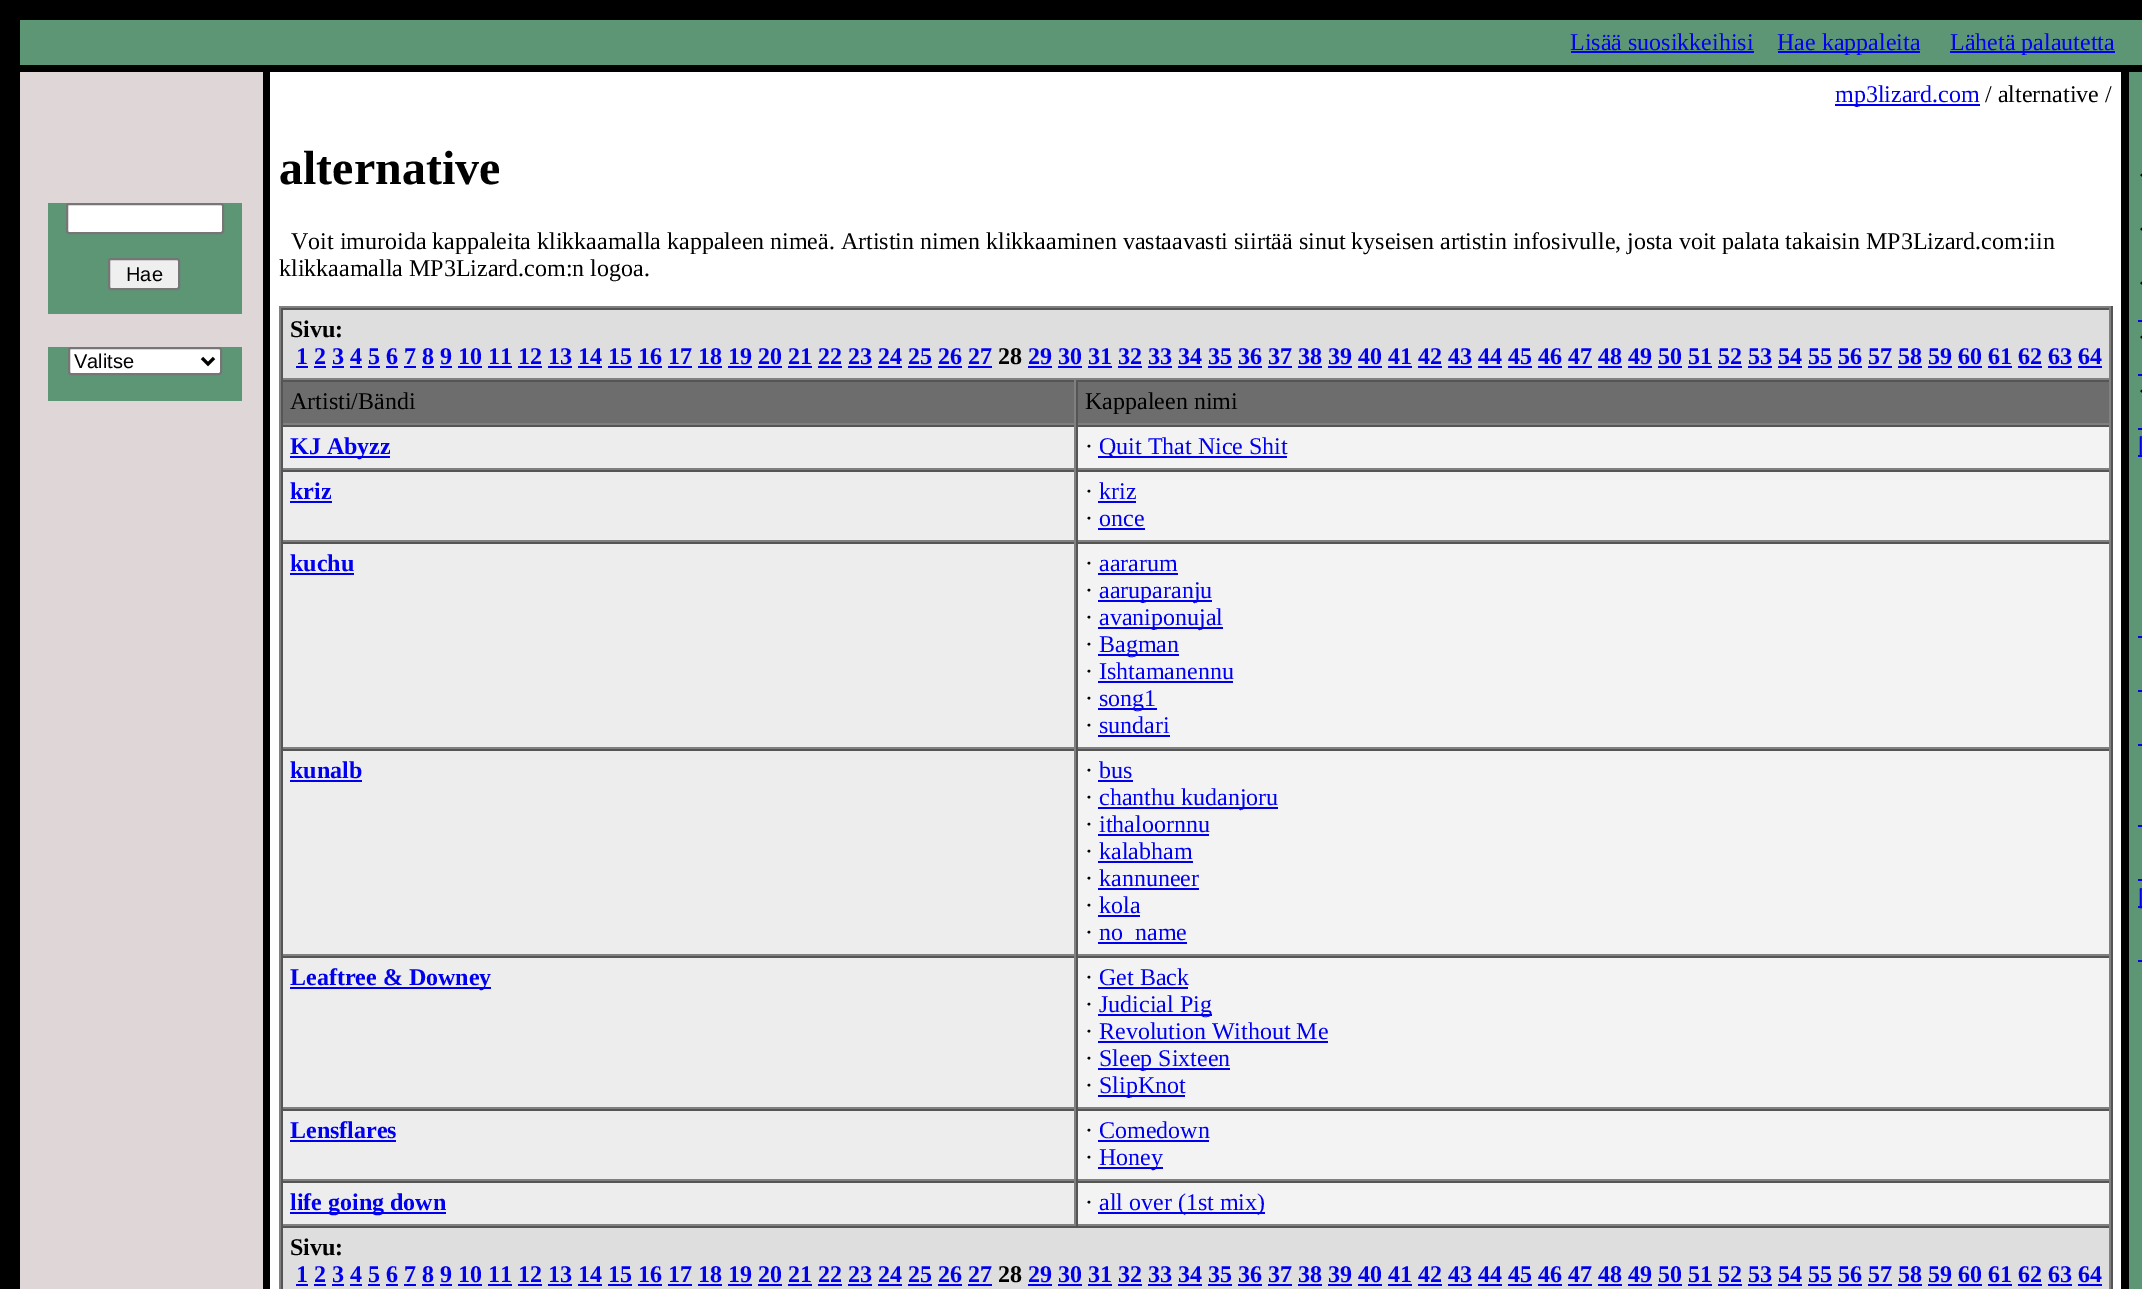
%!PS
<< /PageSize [2142 1289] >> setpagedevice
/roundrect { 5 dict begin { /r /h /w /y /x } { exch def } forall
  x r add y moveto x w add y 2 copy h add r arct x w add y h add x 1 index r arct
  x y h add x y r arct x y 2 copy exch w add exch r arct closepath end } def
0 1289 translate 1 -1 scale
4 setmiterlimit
0 setgray
0 0 2142 1289 rectfill
0.365 0.588 0.459 setrgbcolor
20 20 2122 45 rectfill
/LiberationSerif-Regular [24 0 0 -24 0 0] selectfont
0 0 0.933 setrgbcolor
1570 50 moveto (Lisää suosikkeihisi) show
1571 51 183 2 rectfill
1778 51 142 2 rectfill
1777 50 moveto (Hae kappaleita) show
1950 51 165 2 rectfill
1950 50 moveto (Lähetä palautetta) show
0.871 0.839 0.843 setrgbcolor
20 72 243 1217 rectfill
0.365 0.588 0.459 setrgbcolor
48 203 194 111 rectfill
1 setgray
67 204 156 29 2 roundrect gsave fill grestore
0.463 setgray
2 setlinewidth
stroke
0.937 setgray
109 259 70 30 2 roundrect gsave fill grestore
0.463 setgray
stroke
/LiberationSans-Regular [20 0 0 -20 0 0] selectfont
0 setgray
126 281 moveto (Hae) show
0.365 0.588 0.459 setrgbcolor
48 347 194 54 rectfill
1 setgray
69 348 152 26 2 roundrect gsave fill grestore
0.463 setgray
stroke
0 setgray
3 setlinewidth
newpath 202 358 moveto 208 364 lineto 214 358 lineto stroke
74 368 moveto (Valitse) show
1 setgray
270 72 1851 1217 rectfill
0 0 0.933 setrgbcolor
1835 104 145 2 rectfill
/LiberationSerif-Regular [24 0 0 -24 0 0] selectfont
1835 102 moveto (mp3lizard.com) show
0 setgray
1985 102 moveto (/ alternative /) show
/LiberationSerif-Bold [48 0 0 -48 0 0] selectfont
279 184 moveto (alternative) show
/LiberationSerif-Regular [24 0 0 -24 0 0] selectfont
291 249 moveto (Voit imuroida kappaleita klikkaamalla kappaleen nimeä. Artistin nimen klikkaaminen vastaavasti siirtää sinut kyseisen artistin infosivulle, josta voit palata takaisin MP3Lizard.com:iin) show
279 276 moveto (klikkaamalla MP3Lizard.com:n logoa.) show
0.502 setgray
279 306 1833 2 rectfill
0.333 setgray
2111 306 2 983 rectfill
0.502 setgray
279 306 2 983 rectfill
0.871 setgray
283 310 1826 68 rectfill
0.333 setgray
281 308 1830 2 rectfill
0.502 setgray
2109 308 2 72 rectfill
281 378 1830 2 rectfill
0.333 setgray
281 308 2 72 rectfill
/LiberationSerif-Bold [24 0 0 -24 0 0] selectfont
0 setgray
290 337 moveto (Sivu:) show
0 0 0.933 setrgbcolor
296 364 moveto (1 2 3 4 5 6 7 8 9 10 11 12 13 14 15 16 17 18 19 20 21 22 23 24 25 26 27) show
296 366 12 2 rectfill
314 366 12 2 rectfill
332 366 12 2 rectfill
350 366 12 2 rectfill
368 366 12 2 rectfill
386 366 12 2 rectfill
404 366 12 2 rectfill
422 366 12 2 rectfill
440 366 12 2 rectfill
458 366 24 2 rectfill
488 366 24 2 rectfill
518 366 24 2 rectfill
548 366 24 2 rectfill
578 366 24 2 rectfill
608 366 24 2 rectfill
638 366 24 2 rectfill
668 366 24 2 rectfill
698 366 24 2 rectfill
728 366 24 2 rectfill
758 366 24 2 rectfill
788 366 24 2 rectfill
818 366 24 2 rectfill
848 366 24 2 rectfill
878 366 24 2 rectfill
908 366 24 2 rectfill
938 366 24 2 rectfill
968 366 24 2 rectfill
0 setgray
998 364 moveto (28) show
0 0 0.933 setrgbcolor
1028 364 moveto (29 30 31 32 33 34 35 36 37 38 39 40 41 42 43 44 45 46 47 48 49 50 51 52 53 54 55 56 57 58 59 60 61 62 63 64) show
1028 366 24 2 rectfill
1058 366 24 2 rectfill
1088 366 24 2 rectfill
1118 366 24 2 rectfill
1148 366 24 2 rectfill
1178 366 24 2 rectfill
1208 366 24 2 rectfill
1238 366 24 2 rectfill
1268 366 24 2 rectfill
1298 366 24 2 rectfill
1328 366 24 2 rectfill
1358 366 24 2 rectfill
1388 366 24 2 rectfill
1418 366 24 2 rectfill
1448 366 24 2 rectfill
1478 366 24 2 rectfill
1508 366 24 2 rectfill
1538 366 24 2 rectfill
1568 366 24 2 rectfill
1598 366 24 2 rectfill
1628 366 24 2 rectfill
1658 366 24 2 rectfill
1688 366 24 2 rectfill
1718 366 24 2 rectfill
1748 366 24 2 rectfill
1778 366 24 2 rectfill
1808 366 24 2 rectfill
1838 366 24 2 rectfill
1868 366 24 2 rectfill
1898 366 24 2 rectfill
1928 366 24 2 rectfill
1958 366 24 2 rectfill
1988 366 24 2 rectfill
2018 366 24 2 rectfill
2048 366 24 2 rectfill
2078 366 24 2 rectfill
0.427 setgray
283 382 1826 41 rectfill
0.333 setgray
281 380 1830 2 rectfill
0.502 setgray
1074 380 2 45 rectfill
281 423 795 2 rectfill
0.333 setgray
281 380 2 45 rectfill
/LiberationSerif-Regular [24 0 0 -24 0 0] selectfont
0 setgray
290 409 moveto (Artisti/Bändi) show
0.502 setgray
2109 380 2 45 rectfill
1076 423 1035 2 rectfill
0.333 setgray
1076 380 2 45 rectfill
0 setgray
1085 409 moveto (Kappaleen nimi) show
0.929 setgray
283 427 791 41 rectfill
0.333 setgray
281 425 1830 2 rectfill
0.502 setgray
1074 425 2 45 rectfill
281 468 795 2 rectfill
0.333 setgray
281 425 2 45 rectfill
0 0 0.933 setrgbcolor
290 456 100 2 rectfill
/LiberationSerif-Bold [24 0 0 -24 0 0] selectfont
290 454 moveto (KJ Abyzz) show
0.953 setgray
1078 427 1031 41 rectfill
0.502 setgray
2109 425 2 45 rectfill
1076 468 1035 2 rectfill
0.333 setgray
1076 425 2 45 rectfill
/LiberationSerif-Regular [24 0 0 -24 0 0] selectfont
0 setgray
1085 454 moveto (·) show
0 0 0.933 setrgbcolor
1098 456 189 2 rectfill
1099 454 moveto (Quit That Nice Shit) show
0.929 setgray
283 472 791 68 rectfill
0.333 setgray
281 470 1830 2 rectfill
0.502 setgray
1074 470 2 72 rectfill
281 540 795 2 rectfill
0.333 setgray
281 470 2 72 rectfill
/LiberationSerif-Bold [24 0 0 -24 0 0] selectfont
0 0 0.933 setrgbcolor
290 499 moveto (kriz) show
290 501 42 2 rectfill
0.953 setgray
1078 472 1031 68 rectfill
0.502 setgray
2109 470 2 72 rectfill
1076 540 1035 2 rectfill
0.333 setgray
1076 470 2 72 rectfill
/LiberationSerif-Regular [24 0 0 -24 0 0] selectfont
0 setgray
1085 499 moveto (·) show
0 0 0.933 setrgbcolor
1099 499 moveto (kriz) show
1098 501 38 2 rectfill
0 setgray
1085 526 moveto (·) show
0 0 0.933 setrgbcolor
1099 526 moveto (once) show
1098 528 47 2 rectfill
0.929 setgray
283 544 791 203 rectfill
0.333 setgray
281 542 1830 2 rectfill
0.502 setgray
1074 542 2 207 rectfill
281 747 795 2 rectfill
0.333 setgray
281 542 2 207 rectfill
/LiberationSerif-Bold [24 0 0 -24 0 0] selectfont
0 0 0.933 setrgbcolor
290 571 moveto (kuchu) show
290 573 64 2 rectfill
0.953 setgray
1078 544 1031 203 rectfill
0.502 setgray
2109 542 2 207 rectfill
1076 747 1035 2 rectfill
0.333 setgray
1076 542 2 207 rectfill
/LiberationSerif-Regular [24 0 0 -24 0 0] selectfont
0 setgray
1085 571 moveto (·) show
0 0 0.933 setrgbcolor
1099 571 moveto (aararum) show
1098 573 80 2 rectfill
0 setgray
1085 598 moveto (·) show
0 0 0.933 setrgbcolor
1098 600 114 2 rectfill
1099 598 moveto (aaruparanju) show
0 setgray
1085 625 moveto (·) show
0 0 0.933 setrgbcolor
1098 627 125 2 rectfill
1099 625 moveto (avaniponujal) show
0 setgray
1085 652 moveto (·) show
0 0 0.933 setrgbcolor
1098 654 81 2 rectfill
1099 652 moveto (Bagman) show
0 setgray
1085 679 moveto (·) show
0 0 0.933 setrgbcolor
1099 679 moveto (Ishtamanennu) show
1098 681 135 2 rectfill
0 setgray
1085 706 moveto (·) show
0 0 0.933 setrgbcolor
1098 708 59 2 rectfill
1099 706 moveto (song1) show
0 setgray
1085 733 moveto (·) show
0 0 0.933 setrgbcolor
1099 733 moveto (sundari) show
1098 735 72 2 rectfill
0.929 setgray
283 751 791 203 rectfill
0.333 setgray
281 749 1830 2 rectfill
0.502 setgray
1074 749 2 207 rectfill
281 954 795 2 rectfill
0.333 setgray
281 749 2 207 rectfill
/LiberationSerif-Bold [24 0 0 -24 0 0] selectfont
0 0 0.933 setrgbcolor
290 778 moveto (kunalb) show
290 780 72 2 rectfill
0.953 setgray
1078 751 1031 203 rectfill
0.502 setgray
2109 749 2 207 rectfill
1076 954 1035 2 rectfill
0.333 setgray
1076 749 2 207 rectfill
/LiberationSerif-Regular [24 0 0 -24 0 0] selectfont
0 setgray
1085 778 moveto (·) show
0 0 0.933 setrgbcolor
1099 778 moveto (bus) show
1098 780 35 2 rectfill
0 setgray
1085 805 moveto (·) show
0 0 0.933 setrgbcolor
1098 807 180 2 rectfill
1099 805 moveto (chanthu kudanjoru) show
0 setgray
1085 832 moveto (·) show
0 0 0.933 setrgbcolor
1099 832 moveto (ithaloornnu) show
1098 834 111 2 rectfill
0 setgray
1085 859 moveto (·) show
0 0 0.933 setrgbcolor
1099 859 moveto (kalabham) show
1098 861 95 2 rectfill
0 setgray
1085 886 moveto (·) show
0 0 0.933 setrgbcolor
1099 886 moveto (kannuneer) show
1098 888 101 2 rectfill
0 setgray
1085 913 moveto (·) show
0 0 0.933 setrgbcolor
1099 913 moveto (kola) show
1098 915 42 2 rectfill
0 setgray
1085 940 moveto (·) show
0 0 0.933 setrgbcolor
1098 942 89 2 rectfill
1099 940 moveto (no_name) show
0.929 setgray
283 958 791 149 rectfill
0.333 setgray
281 956 1830 2 rectfill
0.502 setgray
1074 956 2 153 rectfill
281 1107 795 2 rectfill
0.333 setgray
281 956 2 153 rectfill
0 0 0.933 setrgbcolor
290 987 201 2 rectfill
/LiberationSerif-Bold [24 0 0 -24 0 0] selectfont
290 985 moveto (Leaftree & Downey) show
0.953 setgray
1078 958 1031 149 rectfill
0.502 setgray
2109 956 2 153 rectfill
1076 1107 1035 2 rectfill
0.333 setgray
1076 956 2 153 rectfill
/LiberationSerif-Regular [24 0 0 -24 0 0] selectfont
0 setgray
1085 985 moveto (·) show
0 0 0.933 setrgbcolor
1099 985 moveto (Get Back) show
1098 987 90 2 rectfill
0 setgray
1085 1012 moveto (·) show
0 0 0.933 setrgbcolor
1098 1014 114 2 rectfill
1099 1012 moveto (Judicial Pig) show
0 setgray
1085 1039 moveto (·) show
0 0 0.933 setrgbcolor
1099 1039 moveto (Revolution Without Me) show
1098 1041 230 2 rectfill
0 setgray
1085 1066 moveto (·) show
0 0 0.933 setrgbcolor
1098 1068 132 2 rectfill
1099 1066 moveto (Sleep Sixteen) show
0 setgray
1085 1093 moveto (·) show
0 0 0.933 setrgbcolor
1098 1095 87 2 rectfill
1099 1093 moveto (SlipKnot) show
0.929 setgray
283 1111 791 68 rectfill
0.333 setgray
281 1109 1830 2 rectfill
0.502 setgray
1074 1109 2 72 rectfill
281 1179 795 2 rectfill
0.333 setgray
281 1109 2 72 rectfill
/LiberationSerif-Bold [24 0 0 -24 0 0] selectfont
0 0 0.933 setrgbcolor
290 1138 moveto (Lensflares) show
290 1140 106 2 rectfill
0.953 setgray
1078 1111 1031 68 rectfill
0.502 setgray
2109 1109 2 72 rectfill
1076 1179 1035 2 rectfill
0.333 setgray
1076 1109 2 72 rectfill
/LiberationSerif-Regular [24 0 0 -24 0 0] selectfont
0 setgray
1085 1138 moveto (·) show
0 0 0.933 setrgbcolor
1099 1138 moveto (Comedown) show
1098 1140 111 2 rectfill
0 setgray
1085 1165 moveto (·) show
0 0 0.933 setrgbcolor
1098 1167 65 2 rectfill
1099 1165 moveto (Honey) show
0.929 setgray
283 1183 791 41 rectfill
0.333 setgray
281 1181 1830 2 rectfill
0.502 setgray
1074 1181 2 45 rectfill
281 1224 795 2 rectfill
0.333 setgray
281 1181 2 45 rectfill
0 0 0.933 setrgbcolor
290 1212 156 2 rectfill
/LiberationSerif-Bold [24 0 0 -24 0 0] selectfont
290 1210 moveto (life going down) show
0.953 setgray
1078 1183 1031 41 rectfill
0.502 setgray
2109 1181 2 45 rectfill
1076 1224 1035 2 rectfill
0.333 setgray
1076 1181 2 45 rectfill
/LiberationSerif-Regular [24 0 0 -24 0 0] selectfont
0 setgray
1085 1210 moveto (·) show
0 0 0.933 setrgbcolor
1098 1212 167 2 rectfill
1099 1210 moveto (all over \(1st mix\)) show
0.871 setgray
283 1228 1826 61 rectfill
0.333 setgray
281 1226 1830 2 rectfill
0.502 setgray
2109 1226 2 63 rectfill
0.333 setgray
281 1226 2 63 rectfill
/LiberationSerif-Bold [24 0 0 -24 0 0] selectfont
0 setgray
290 1255 moveto (Sivu:) show
0 0 0.933 setrgbcolor
296 1282 moveto (1 2 3 4 5 6 7 8 9 10 11 12 13 14 15 16 17 18 19 20 21 22 23 24 25 26 27) show
296 1284 12 2 rectfill
314 1284 12 2 rectfill
332 1284 12 2 rectfill
350 1284 12 2 rectfill
368 1284 12 2 rectfill
386 1284 12 2 rectfill
404 1284 12 2 rectfill
422 1284 12 2 rectfill
440 1284 12 2 rectfill
458 1284 24 2 rectfill
488 1284 24 2 rectfill
518 1284 24 2 rectfill
548 1284 24 2 rectfill
578 1284 24 2 rectfill
608 1284 24 2 rectfill
638 1284 24 2 rectfill
668 1284 24 2 rectfill
698 1284 24 2 rectfill
728 1284 24 2 rectfill
758 1284 24 2 rectfill
788 1284 24 2 rectfill
818 1284 24 2 rectfill
848 1284 24 2 rectfill
878 1284 24 2 rectfill
908 1284 24 2 rectfill
938 1284 24 2 rectfill
968 1284 24 2 rectfill
0 setgray
998 1282 moveto (28) show
0 0 0.933 setrgbcolor
1028 1282 moveto (29 30 31 32 33 34 35 36 37 38 39 40 41 42 43 44 45 46 47 48 49 50 51 52 53 54 55 56 57 58 59 60 61 62 63 64) show
1028 1284 24 2 rectfill
1058 1284 24 2 rectfill
1088 1284 24 2 rectfill
1118 1284 24 2 rectfill
1148 1284 24 2 rectfill
1178 1284 24 2 rectfill
1208 1284 24 2 rectfill
1238 1284 24 2 rectfill
1268 1284 24 2 rectfill
1298 1284 24 2 rectfill
1328 1284 24 2 rectfill
1358 1284 24 2 rectfill
1388 1284 24 2 rectfill
1418 1284 24 2 rectfill
1448 1284 24 2 rectfill
1478 1284 24 2 rectfill
1508 1284 24 2 rectfill
1538 1284 24 2 rectfill
1568 1284 24 2 rectfill
1598 1284 24 2 rectfill
1628 1284 24 2 rectfill
1658 1284 24 2 rectfill
1688 1284 24 2 rectfill
1718 1284 24 2 rectfill
1748 1284 24 2 rectfill
1778 1284 24 2 rectfill
1808 1284 24 2 rectfill
1838 1284 24 2 rectfill
1868 1284 24 2 rectfill
1898 1284 24 2 rectfill
1928 1284 24 2 rectfill
1958 1284 24 2 rectfill
1988 1284 24 2 rectfill
2018 1284 24 2 rectfill
2048 1284 24 2 rectfill
2078 1284 24 2 rectfill
0.365 0.588 0.459 setrgbcolor
2129 72 13 1217 rectfill
/LiberationSerif-Regular [24 0 0 -24 0 0] selectfont
0 setgray
2138 183 moveto (·) show
2138 237 moveto (·) show
2138 291 moveto (·) show
0 0 0.933 setrgbcolor
2138 320 4 2 rectfill
0 setgray
2138 345 moveto (·) show
0 0 0.933 setrgbcolor
2138 374 4 2 rectfill
0 setgray
2138 399 moveto (·) show
0 0 0.933 setrgbcolor
2138 455 4 2 rectfill
2138 453 moveto ([) show
2138 428 4 2 rectfill
2138 636 4 2 rectfill
2138 690 4 2 rectfill
2138 744 4 2 rectfill
2138 825 4 2 rectfill
2138 906 4 2 rectfill
2138 905 moveto ([) show
2138 879 4 2 rectfill
2138 960 4 2 rectfill
showpage
